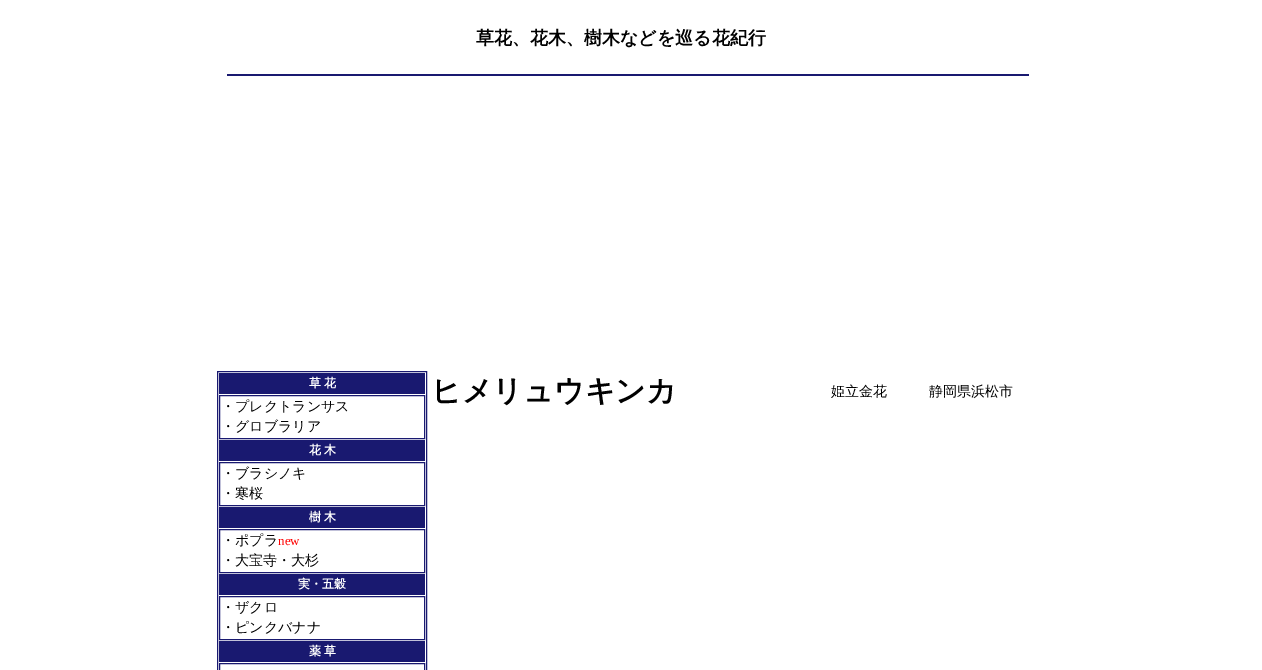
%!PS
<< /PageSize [1262 670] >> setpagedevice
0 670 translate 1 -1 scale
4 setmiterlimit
1 setgray
0 0 1262 670 rectfill
/WenQuanYiZenHei-Bold [18 0 0 -18 0 0] selectfont
0 setgray
476 44 moveto (草花、花木、樹木などを巡る花紀行) show
0.098 0.098 0.439 setrgbcolor
227 74 802 2 rectfill
217.5 371.5 209 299 rectstroke
219 373 206 21 rectfill
/WenQuanYiZenHei-Bold [12 0 0 -12 0 0] selectfont
1 setgray
309 387 moveto -1 0 32 (草 花) widthshow
0.098 0.098 0.439 setrgbcolor
219.5 395.5 205 43 rectstroke
/WenQuanYiZenHei-Medium [14 0 0 -14 0 0] selectfont
0 setgray
221 411 moveto (・プレクトランサス) show
221 431 moveto (・グロブラリア) show
0.098 0.098 0.439 setrgbcolor
219 440 206 21 rectfill
/WenQuanYiZenHei-Bold [12 0 0 -12 0 0] selectfont
1 setgray
309 454 moveto -1 0 32 (花 木) widthshow
0.098 0.098 0.439 setrgbcolor
219.5 462.5 205 43 rectstroke
/WenQuanYiZenHei-Medium [14 0 0 -14 0 0] selectfont
0 setgray
221 478 moveto (・ブラシノキ) show
221 498 moveto (・寒桜) show
0.098 0.098 0.439 setrgbcolor
219 507 206 21 rectfill
/WenQuanYiZenHei-Bold [12 0 0 -12 0 0] selectfont
1 setgray
309 521 moveto -1 0 32 (樹 木) widthshow
0.098 0.098 0.439 setrgbcolor
219.5 529.5 205 43 rectstroke
/WenQuanYiZenHei-Medium [14 0 0 -14 0 0] selectfont
0 setgray
221 545 moveto (・ポプラ) show
/LiberationSerif-Regular [13 0 0 -13 0 0] selectfont
1 0 0 setrgbcolor
278 545 moveto (new) show
/WenQuanYiZenHei-Medium [14 0 0 -14 0 0] selectfont
0 setgray
221 565 moveto (・大宝寺・大杉) show
0.098 0.098 0.439 setrgbcolor
219 574 206 21 rectfill
/WenQuanYiZenHei-Bold [12 0 0 -12 0 0] selectfont
1 setgray
298 588 moveto (実・五穀) show
0.098 0.098 0.439 setrgbcolor
219.5 596.5 205 43 rectstroke
/WenQuanYiZenHei-Medium [14 0 0 -14 0 0] selectfont
0 setgray
221 612 moveto (・ザクロ) show
221 632 moveto (・ピンクバナナ) show
0.098 0.098 0.439 setrgbcolor
219 641 206 21 rectfill
/WenQuanYiZenHei-Bold [12 0 0 -12 0 0] selectfont
1 setgray
309 655 moveto -1 0 32 (薬 草) widthshow
0.098 0.098 0.439 setrgbcolor
219.5 663.5 205 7 rectstroke
/WenQuanYiZenHei-Bold [30 0 0 -30 0 0] selectfont
0 setgray
431 401 moveto (ヒメリュウキンカ) show
/WenQuanYiZenHei-Medium [14 0 0 -14 0 0] selectfont
831 396 moveto (姫立金花　　　静岡県浜松市) show
showpage
